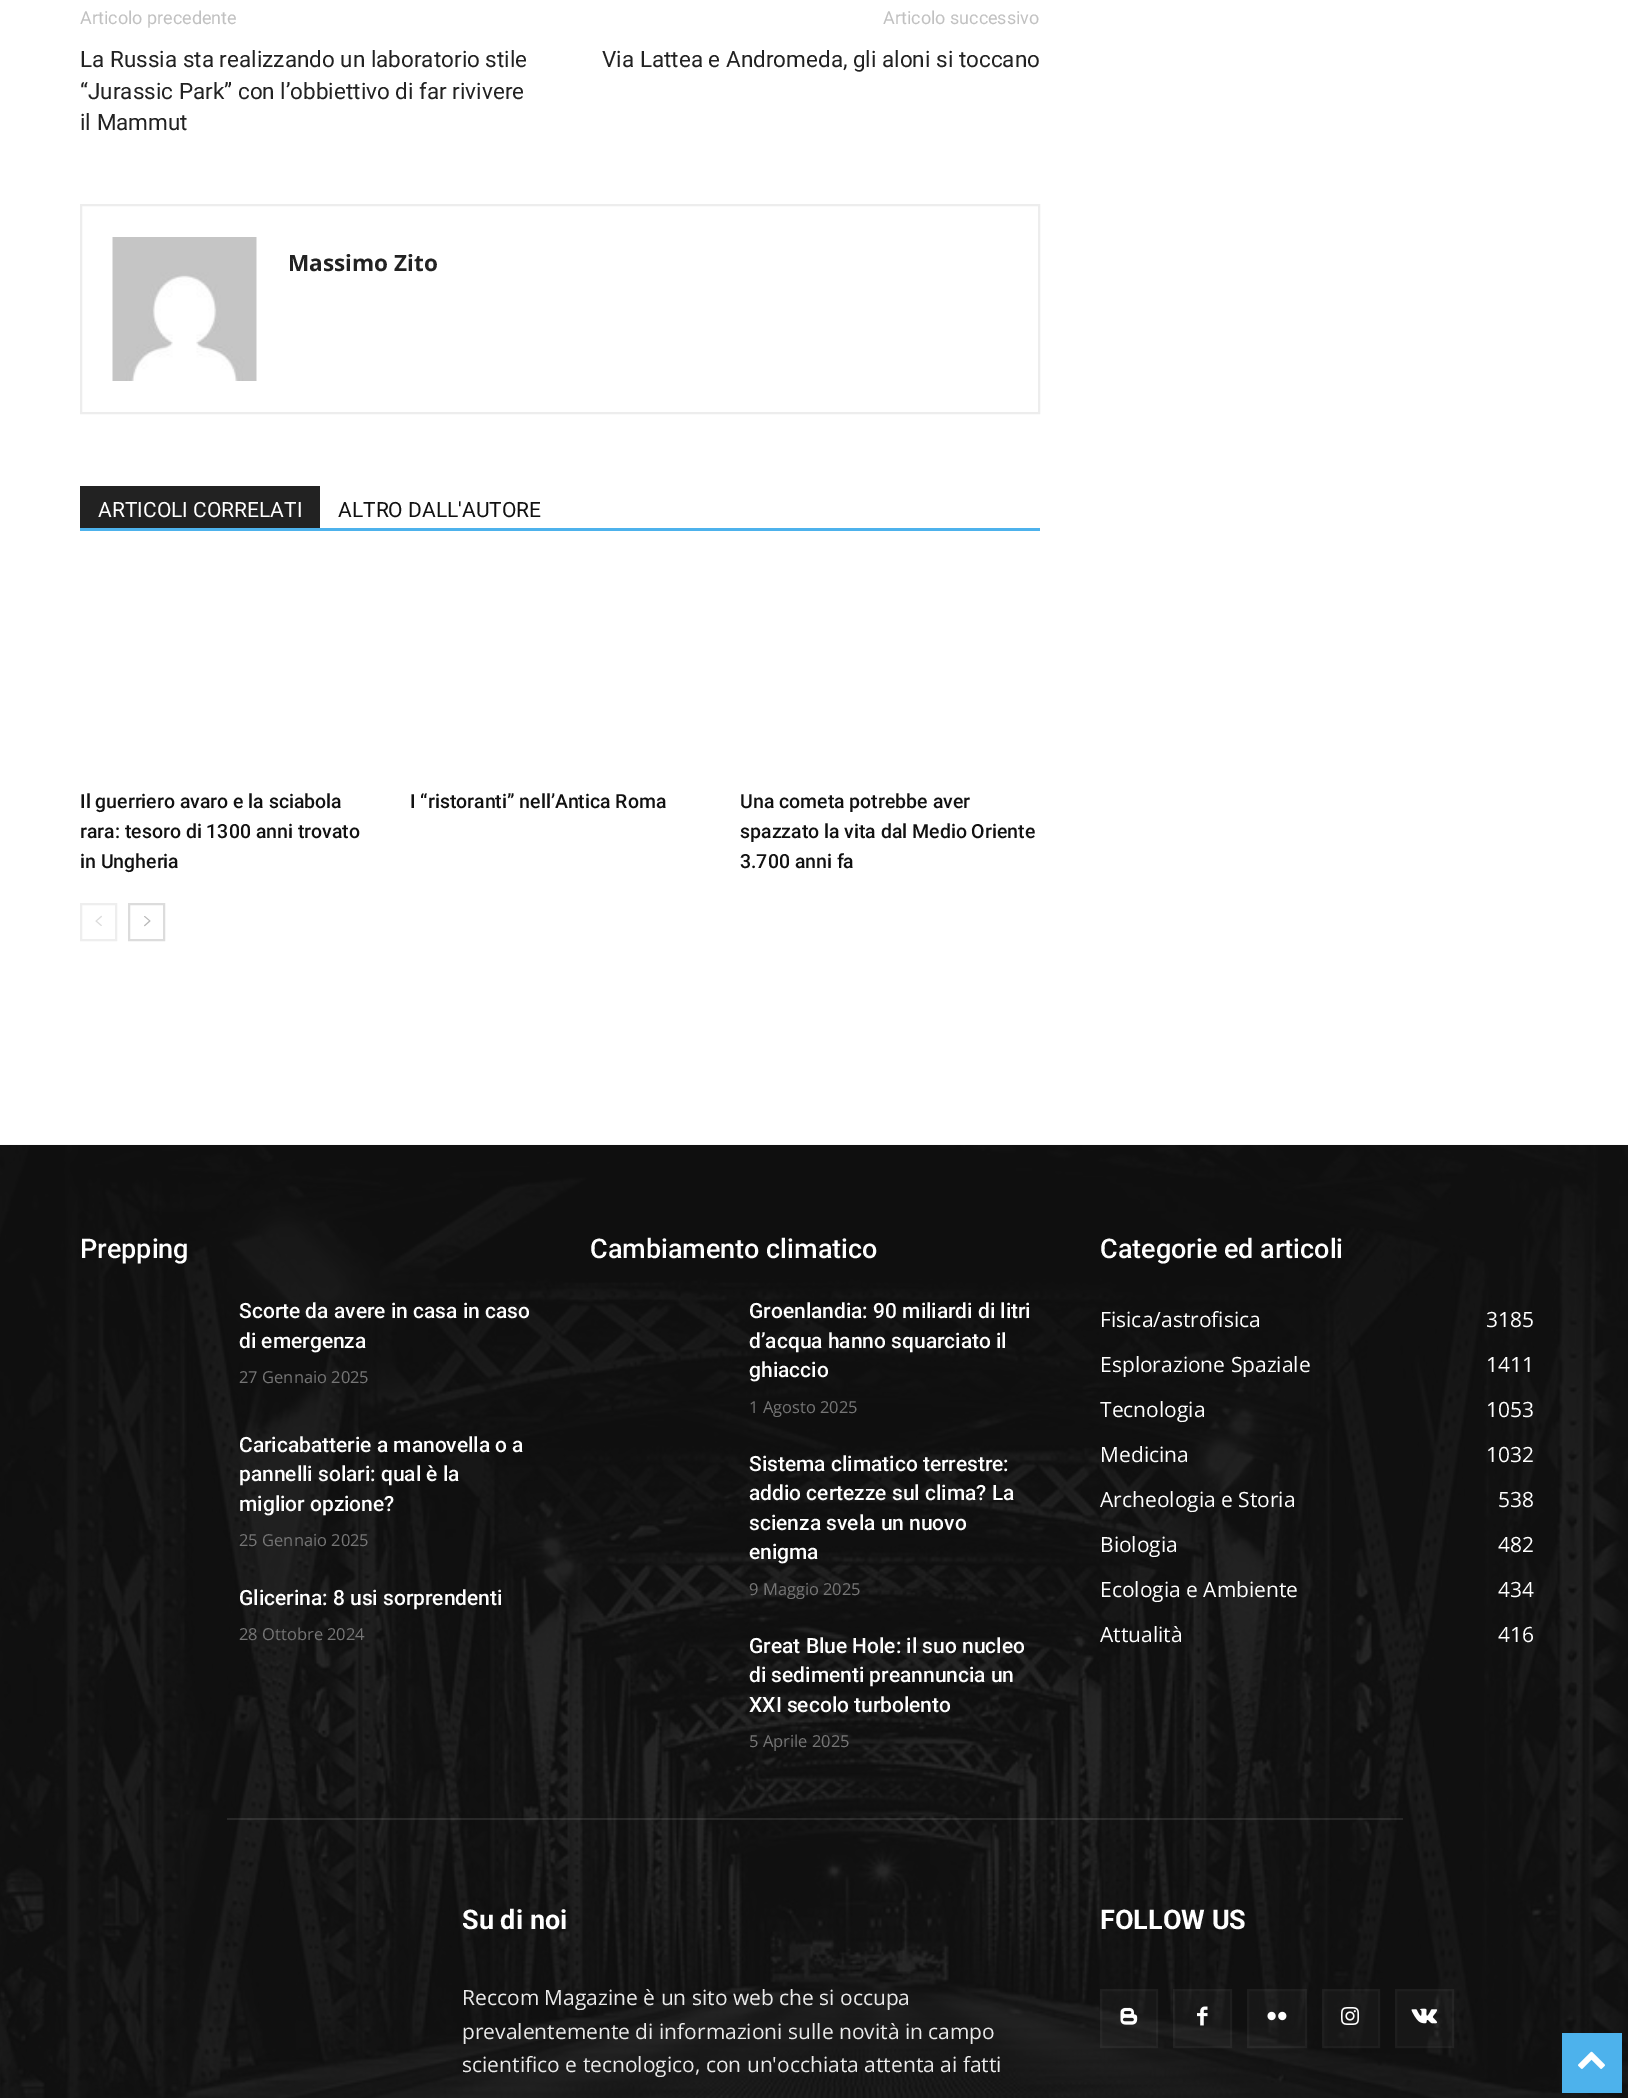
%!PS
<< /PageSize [1628 2098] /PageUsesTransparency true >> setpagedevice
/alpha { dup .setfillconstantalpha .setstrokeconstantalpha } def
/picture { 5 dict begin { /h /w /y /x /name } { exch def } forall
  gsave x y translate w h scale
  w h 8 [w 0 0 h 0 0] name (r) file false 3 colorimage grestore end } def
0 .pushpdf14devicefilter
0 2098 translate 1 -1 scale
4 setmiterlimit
1 setgray
0 0 1628 2098 rectfill
/Roboto-Regular [18 0 0 -18 0 0] selectfont
0.757 setgray
80 24 moveto (Articolo precedente) show
/Roboto-Regular [22.5 0 0 -22.5 0 0] selectfont
0.133 setgray
80 67 moveto (La Russia sta realizzando un laboratorio stile) show
80 99 moveto (“Jurassic Park” con l’obbiettivo di far rivivere) show
80 130 moveto (il Mammut) show
/Roboto-Regular [18 0 0 -18 0 0] selectfont
0.757 setgray
883 24 moveto (Articolo successivo) show
/Roboto-Regular [22.5 0 0 -22.5 0 0] selectfont
0.133 setgray
602 67 moveto (Via Lattea e Andromeda, gli aloni si toccano) show
0.929 setgray
2 setlinewidth
81 205 958 208 rectstroke
(img1.rgb) 112 237 145 144 picture
/OpenSans-Bold [22.5 0 0 -22.5 0 0] selectfont
0.133 setgray
288 271 moveto (Massimo Zito) show
0.302 0.698 0.925 setrgbcolor
80 528 960 3 rectfill
0.133 setgray
80 486 240 42 rectfill
/Roboto-Regular [21 0 0 -21 0 0] selectfont
1 setgray
98 517 moveto (ARTICOLI CORRELATI) show
0.067 setgray
338 517 moveto (ALTRO DALL'AUTORE) show
/Roboto-Medium [19.5 0 0 -19.5 0 0] selectfont
80 808 moveto (Il guerriero avaro e la sciabola) show
80 838 moveto (rara: tesoro di 1300 anni trovato) show
80 868 moveto (in Ungheria) show
410 808 moveto (I “ristoranti” nell’Antica Roma) show
740 808 moveto (Una cometa potrebbe aver) show
740 838 moveto (spazzato la vita dal Medio Oriente) show
740 868 moveto (3.700 anni fa) show
0.933 setgray
81 904 35 36 rectstroke
(img2.rgb) 95 915 7 11 picture
0.863 setgray
129 904 35 36 rectstroke
(img3.rgb) 144 916 7 11 picture
0.067 setgray
0 1145 1628 953 rectfill
(img4.rgb) 0 1144 1628 954 picture
/Roboto-Medium [27 0 0 -27 0 0] selectfont
1 setgray
80 1258 moveto (Prepping) show
/Roboto-Medium [21 0 0 -21 0 0] selectfont
239 1318 moveto (Scorte da avere in casa in caso) show
239 1348 moveto (di emergenza) show
/OpenSans-Regular [16.5 0 0 -16.5 0 0] selectfont
0.463 setgray
239 1383 moveto (27 Gennaio 2025) show
/Roboto-Medium [21 0 0 -21 0 0] selectfont
1 setgray
239 1452 moveto (Caricabatterie a manovella o a) show
239 1481 moveto (pannelli solari: qual è la) show
239 1511 moveto (miglior opzione?) show
/OpenSans-Regular [16.5 0 0 -16.5 0 0] selectfont
0.463 setgray
239 1546 moveto (25 Gennaio 2025) show
/Roboto-Medium [21 0 0 -21 0 0] selectfont
1 setgray
239 1605 moveto (Glicerina: 8 usi sorprendenti) show
/OpenSans-Regular [16.5 0 0 -16.5 0 0] selectfont
0.463 setgray
239 1640 moveto (28 Ottobre 2024) show
/Roboto-Medium [27 0 0 -27 0 0] selectfont
1 setgray
590 1258 moveto (Cambiamento climatico) show
/Roboto-Medium [21 0 0 -21 0 0] selectfont
749 1318 moveto (Groenlandia: 90 miliardi di litri) show
749 1348 moveto (d’acqua hanno squarciato il) show
749 1377 moveto (ghiaccio) show
/OpenSans-Regular [16.5 0 0 -16.5 0 0] selectfont
0.463 setgray
749 1413 moveto (1 Agosto 2025) show
/Roboto-Medium [21 0 0 -21 0 0] selectfont
1 setgray
749 1471 moveto (Sistema climatico terrestre:) show
749 1500 moveto (addio certezze sul clima? La) show
749 1530 moveto (scienza svela un nuovo) show
749 1559 moveto (enigma) show
/OpenSans-Regular [16.5 0 0 -16.5 0 0] selectfont
0.463 setgray
749 1595 moveto (9 Maggio 2025) show
/Roboto-Medium [21 0 0 -21 0 0] selectfont
1 setgray
749 1653 moveto (Great Blue Hole: il suo nucleo) show
749 1682 moveto (di sedimenti preannuncia un) show
749 1712 moveto (XXI secolo turbolento) show
/OpenSans-Regular [16.5 0 0 -16.5 0 0] selectfont
0.463 setgray
749 1747 moveto (5 Aprile 2025) show
/Roboto-Medium [27 0 0 -27 0 0] selectfont
1 setgray
1100 1258 moveto (Categorie ed articoli) show
/OpenSans-Regular [21 0 0 -21 0 0] selectfont
1100 1327 moveto (Fisica/astrofisica) show
1486 1327 moveto (3185) show
1100 1372 moveto (Esplorazione Spaziale) show
1486 1372 moveto (1411) show
1100 1417 moveto (Tecnologia) show
1486 1417 moveto (1053) show
1100 1462 moveto (Medicina) show
1486 1462 moveto (1032) show
1100 1507 moveto (Archeologia e Storia) show
1498 1507 moveto (538) show
1100 1552 moveto (Biologia) show
1498 1552 moveto (482) show
1100 1597 moveto (Ecologia e Ambiente) show
1498 1597 moveto (434) show
1100 1642 moveto (Attualità) show
1498 1642 moveto (416) show
0.1 alpha
227 1818 1176 2 rectfill
/Roboto-Bold [27 0 0 -27 0 0] selectfont
1 alpha
462 1929 moveto (Su di noi) show
/OpenSans-Regular [21 0 0 -21 0 0] selectfont
0.918 setgray
462 2005 moveto (Reccom Magazine è un sito web che si occupa) show
462 2039 moveto (prevalentemente di informazioni sulle novità in campo) show
462 2072 moveto (scientifico e tecnologico, con un'occhiata attenta ai fatti) show
/Roboto-Bold [27 0 0 -27 0 0] selectfont
1 setgray
1100 1929 moveto (FOLLOW US) show
0.03 alpha
1100 1989 58 59 rectfill
1101 1990 56 57 rectstroke
1 alpha
(img5.rgb) 1120 2007 18 18 picture
0.03 alpha
1173 1989 59 59 rectfill
1174 1990 57 57 rectstroke
1 alpha
(img6.rgb) 1197 2006 11 20 picture
0.03 alpha
1247 1989 60 59 rectfill
1248 1990 58 57 rectstroke
1 alpha
(img7.rgb) 1267 2011 20 10 picture
0.03 alpha
1322 1989 58 59 rectfill
1323 1990 56 57 rectstroke
1 alpha
(img8.rgb) 1341 2007 18 18 picture
0.03 alpha
1395 1989 59 59 rectfill
1396 1990 57 57 rectstroke
1 alpha
(img9.rgb) 1411 2008 27 16 picture
0.302 0.698 0.925 setrgbcolor
1562 2033 60 60 rectfill
(img10.rgb) 1578 2051 27 18 picture
.poppdf14devicefilter showpage
